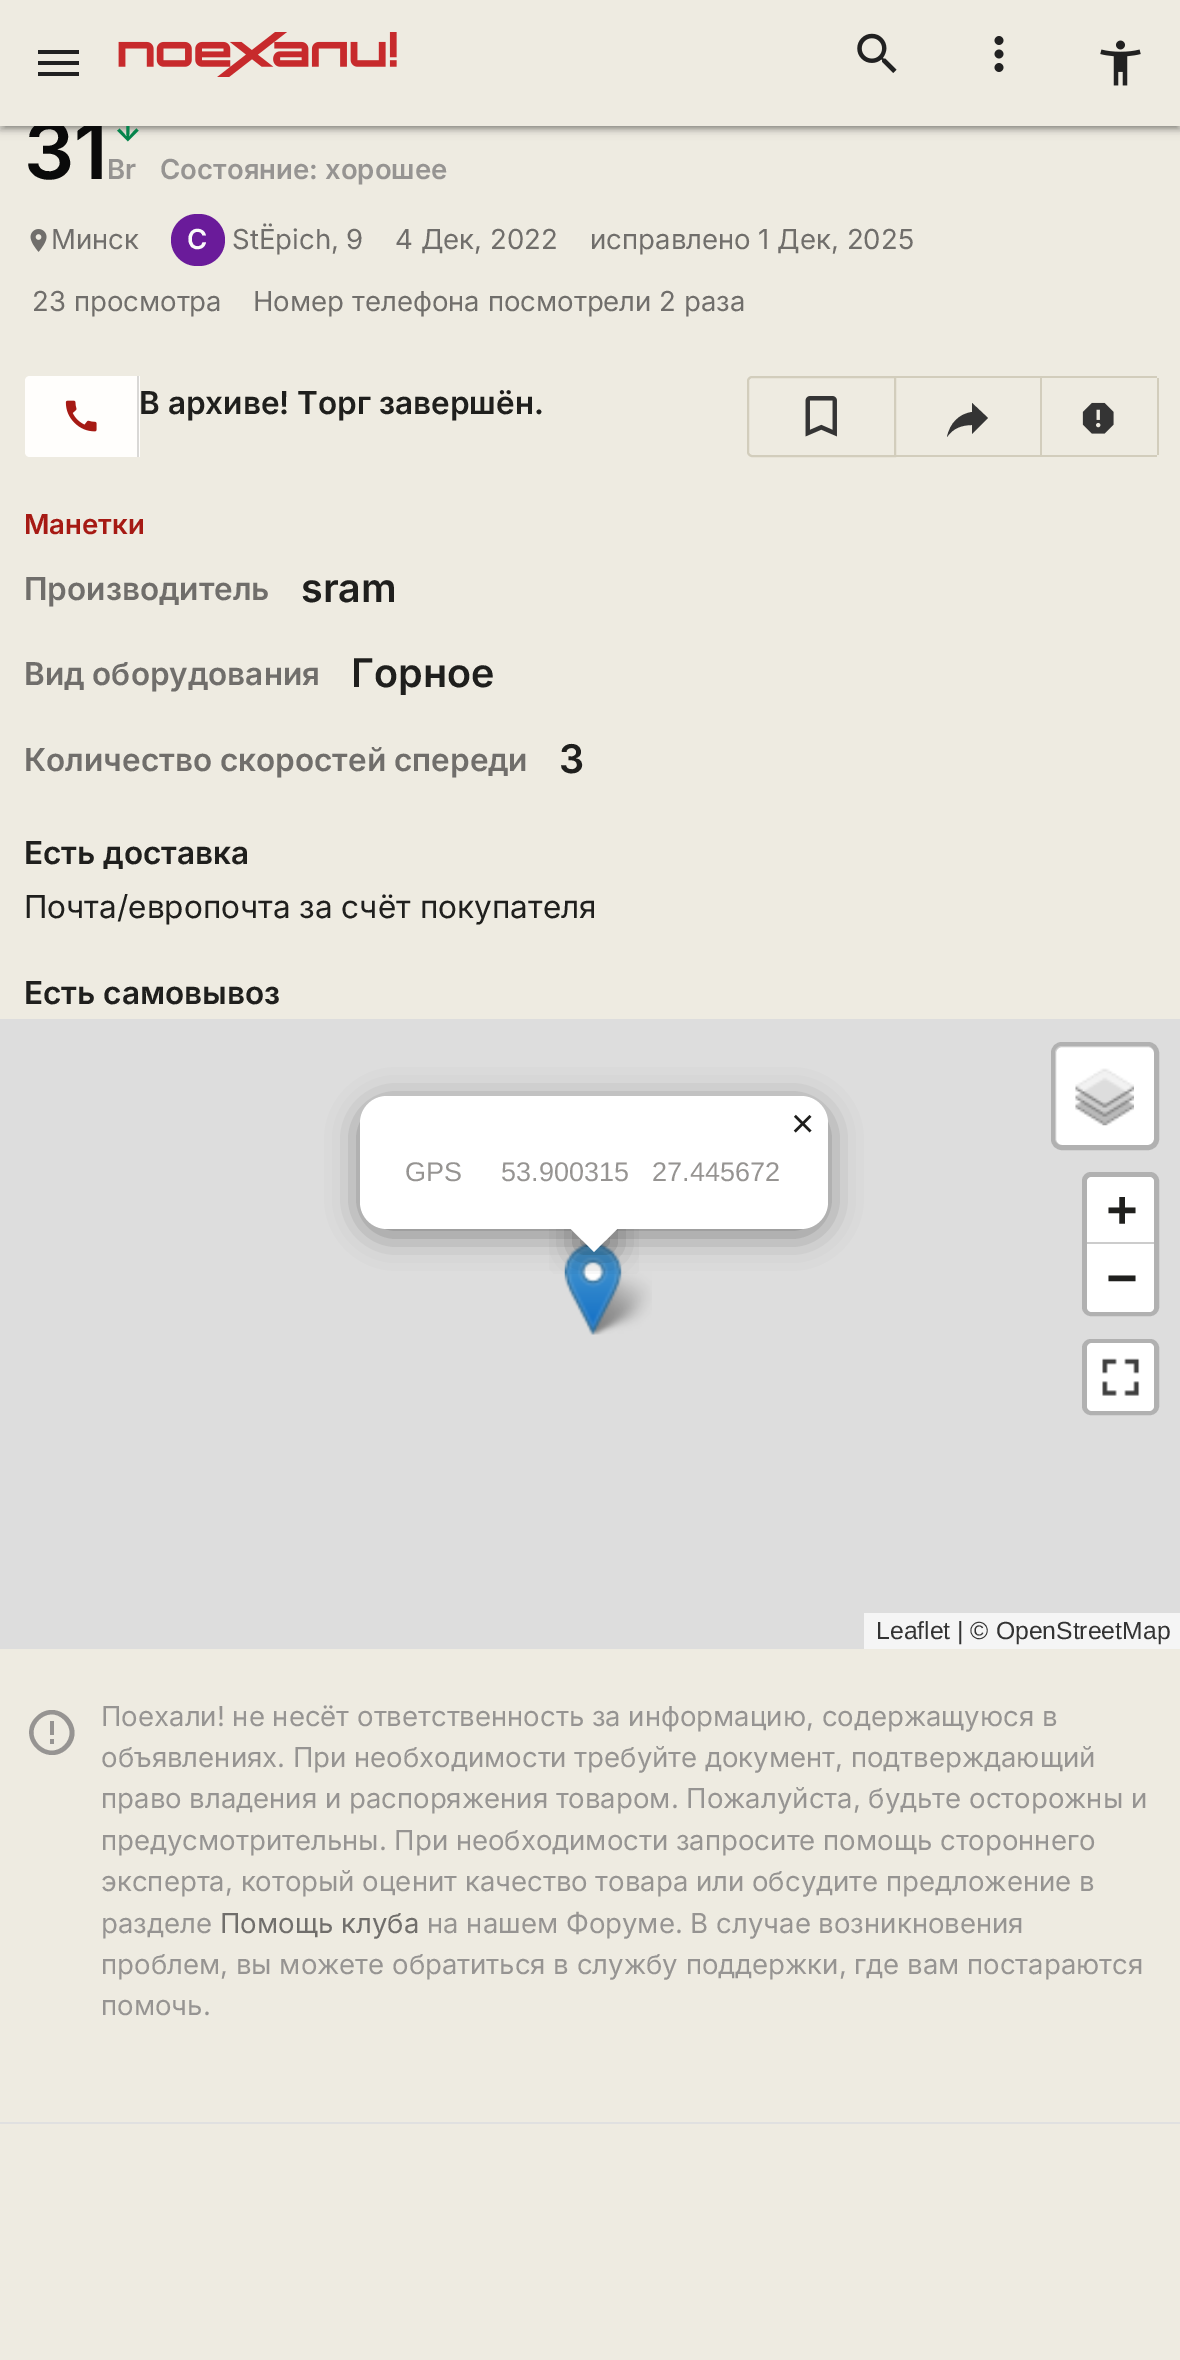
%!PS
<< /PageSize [1180 2360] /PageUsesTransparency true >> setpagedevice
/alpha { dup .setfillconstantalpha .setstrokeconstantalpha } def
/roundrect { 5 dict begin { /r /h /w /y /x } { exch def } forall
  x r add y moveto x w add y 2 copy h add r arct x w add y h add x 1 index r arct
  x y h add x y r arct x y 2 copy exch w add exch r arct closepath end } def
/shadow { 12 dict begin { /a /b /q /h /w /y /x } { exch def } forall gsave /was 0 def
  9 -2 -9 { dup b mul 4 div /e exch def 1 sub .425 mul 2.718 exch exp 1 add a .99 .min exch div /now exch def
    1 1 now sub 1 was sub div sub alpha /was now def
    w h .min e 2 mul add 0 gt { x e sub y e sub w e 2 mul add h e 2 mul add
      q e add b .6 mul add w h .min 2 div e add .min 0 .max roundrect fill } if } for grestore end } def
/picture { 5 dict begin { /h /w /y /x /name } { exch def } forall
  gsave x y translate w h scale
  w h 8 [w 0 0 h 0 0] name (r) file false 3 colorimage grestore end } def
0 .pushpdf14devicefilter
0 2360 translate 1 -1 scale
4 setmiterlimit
0.933 0.922 0.882 setrgbcolor
0 0 1180 2360 rectfill
0 setgray
0 2 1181 126 0 5.5 0.2 shadow
5 11 1172 117 0 1 0.12 shadow
0 5 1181 126 0 2 0.14 shadow
/Inter-SemiBold [79 0 0 -79 0 0] selectfont
0.039 setgray
24 179 moveto (31) show
/Inter-SemiBold [31.5 0 0 -31.5 0 0] selectfont
0.016 0.518 0.294 setrgbcolor
114 141 moveto (↓) show
0.933 0.922 0.882 setrgbcolor
0 0 1180 126 rectfill
0.129 setgray
newpath 38 50 moveto 79 50 lineto 79 54 lineto 38 54 lineto closepath 38 65 moveto 38 61 lineto 79 61 lineto 79 65 lineto closepath 38 76 moveto 38 72 lineto 79 72 lineto 79 76 lineto closepath fill
(img1.rgb) 118 32 279 45 picture
(img2.rgb) 857 33 40 40 picture
(img3.rgb) 994 36 10 36 picture
(img4.rgb) 1100 40 41 46 picture
/Inter-SemiBold [27.55 0 0 -27.55 0 0] selectfont
0.588 0.58 0.573 setrgbcolor
107 179 moveto (Br) show
160 179 moveto (Состояние: хорошее) show
(img5.rgb) 30 229 17 23 picture
/Inter-Regular [27.55 0 0 -27.55 0 0] selectfont
0.439 0.431 0.42 setrgbcolor
51 249 moveto (Минск) show
0.416 0.106 0.604 setrgbcolor
171 214 54 52 26 roundrect fill
/Inter-SemiBold [27.55 0 0 -27.55 0 0] selectfont
0.98 setgray
187 249 moveto (С) show
/Inter-Regular [27.55 0 0 -27.55 0 0] selectfont
0.439 0.431 0.42 setrgbcolor
232 249 moveto (StЁpich, 9) show
395 249 moveto (4 Дек, 2022) show
590 249 moveto (исправлено 1 Дек, 2025) show
32 311 moveto (23 просмотра) show
253 311 moveto (Номер телефона посмотрели 2 раза) show
1 0.996 0.988 setrgbcolor
newpath 30 376 moveto 140 376 lineto 140 457 lineto 30 457 lineto 27 457 25 455 25 452 curveto 25 381 lineto 25 378 27 376 30 376 curveto closepath fill
0.851 0.847 0.839 setrgbcolor
137 376 2 81 rectfill
(img6.rgb) 65 400 32 32 picture
/Inter-SemiBold [31.5 0 0 -31.5 0 0] selectfont
0.122 0.122 0.114 setrgbcolor
139 414 moveto (В архиве! Торг завершён.) show
0.824 0.804 0.737 setrgbcolor
2 setlinewidth
newpath 752 377 moveto 895 377 lineto 895 456 lineto 752 456 lineto 750 456 748 454 748 452 curveto 748 381 lineto 748 379 750 377 752 377 curveto closepath stroke
(img7.rgb) 805 396 32 41 picture
896 376 261 2 rectfill
1040 376 2 81 rectfill
896 455 261 2 rectfill
0.204 setgray
newpath 988 418 moveto 972 403 lineto 972 412 lineto 959 414 950 423 947 437 curveto 953 428 962 425 972 425 curveto 972 434 lineto closepath fill
0.824 0.804 0.737 setrgbcolor
1157 378 2 77 rectfill
(img8.rgb) 1082 402 32 32 picture
/Inter-SemiBold [27.55 0 0 -27.55 0 0] selectfont
0.651 0.102 0.078 setrgbcolor
24 534 moveto (Манетки) show
/Inter-SemiBold [31.5 0 0 -31.5 0 0] selectfont
0.439 0.431 0.42 setrgbcolor
24 600 moveto (Производитель) show
/Inter-SemiBold [39.5 0 0 -39.5 0 0] selectfont
0.122 0.122 0.114 setrgbcolor
301 602 moveto (sram) show
/Inter-SemiBold [31.5 0 0 -31.5 0 0] selectfont
0.439 0.431 0.42 setrgbcolor
24 685 moveto (Вид оборудования) show
/Inter-SemiBold [39.5 0 0 -39.5 0 0] selectfont
0.122 0.122 0.114 setrgbcolor
351 687 moveto (Горное) show
/Inter-SemiBold [31.5 0 0 -31.5 0 0] selectfont
0.439 0.431 0.42 setrgbcolor
24 771 moveto (Количество скоростей спереди) show
/Inter-SemiBold [39.5 0 0 -39.5 0 0] selectfont
0.122 0.122 0.114 setrgbcolor
559 773 moveto (3) show
/Inter-SemiBold [31.5 0 0 -31.5 0 0] selectfont
24 864 moveto (Есть доставка) show
/Inter-Regular [31.5 0 0 -31.5 0 0] selectfont
24 918 moveto (Почта/европочта за счёт покупателя) show
/Inter-SemiBold [31.5 0 0 -31.5 0 0] selectfont
24 1004 moveto (Есть самовывоз) show
0.867 setgray
0 1019 1180 630 rectfill
(img10.rgb) 585 1271 67 64 picture
(img9.rgb) 564 1243 58 92 picture
0 setgray
360 1103 468 132 27 16 0.4 shadow
1 setgray
360 1096 468 133 27 roundrect fill
/LiberationSans-Regular [40 0 0 -40 0 0] selectfont
0.122 0.122 0.114 setrgbcolor
791 1137 moveto (×) show
/LiberationSans-Regular [27 0 0 -27 0 0] selectfont
0.588 0.58 0.573 setrgbcolor
405 1181 moveto (GPS) show
501 1181 moveto (53.900315) show
652 1181 moveto (27.445672) show
gsave
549 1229 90 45 rectclip
0 setgray
576 1213 38 38 0 16 0.4 shadow
grestore
gsave
549 1229 90 45 rectclip
1 setgray
newpath 594 1198 moveto 621 1225 lineto 594 1252 lineto 567 1225 lineto closepath fill
grestore
1 setgray
1055 1046 99 99 7 roundrect fill
0.2 alpha
0 setgray
5 setlinewidth
1053.5 1044.5 103 103 8.5 roundrect stroke
1 alpha
(img11.rgb) 1075 1068 59 58 picture
0.694 setgray
1084.5 1174.5 72 139 6.5 roundrect stroke
1 setgray
newpath 1092 1177 moveto 1149 1177 lineto 1152 1177 1154 1179 1154 1182 curveto 1154 1244 lineto 1087 1244 lineto 1087 1182 lineto 1087 1179 1089 1177 1092 1177 curveto closepath fill
0.8 setgray
1087 1242 67 2 rectfill
/DejaVuSansMono-Bold [50 0 0 -50 0 0] selectfont
0.122 0.122 0.114 setrgbcolor
1107 1226 moveto (+) show
1 setgray
newpath 1087 1244 moveto 1154 1244 lineto 1154 1307 lineto 1154 1310 1152 1312 1149 1312 curveto 1092 1312 lineto 1089 1312 1087 1310 1087 1307 curveto closepath fill
0.122 0.122 0.114 setrgbcolor
1107 1294 moveto (−) show
0.694 setgray
1084.5 1341.5 72 71 6.5 roundrect stroke
1 setgray
1087 1343 67 68 5 roundrect fill
(img12.rgb) 1102 1358 38 38 picture
0.961 setgray
864 1613 316 36 rectfill
/LiberationSans-Regular [24.75 0 0 -24.75 0 0] selectfont
0.2 setgray
876 1639 moveto (Leaflet | © OpenStreetMap) show
0.588 0.58 0.573 setrgbcolor
newpath 39 1745 moveto 56 1762 81 1737 64 1720 curveto 48 1703 22 1728 39 1745 curveto closepath 36 1717 moveto 57 1696 88 1727 68 1748 curveto 47 1769 15 1738 36 1717 curveto closepath 50 1721 moveto 54 1721 lineto 54 1735 lineto 50 1735 lineto closepath 50 1739 moveto 54 1739 lineto 54 1744 lineto 50 1744 lineto closepath fill
/Inter-Regular [27.55 0 0 -27.55 0 0] selectfont
101 1726 moveto (Поехали! не несёт ответственность за информацию, содержащуюся в) show
101 1767 moveto (объявлениях. При необходимости требуйте документ, подтверждающий) show
101 1808 moveto (право владения и распоряжения товаром. Пожалуйста, будьте осторожны и) show
101 1850 moveto (предусмотрительны. При необходимости запросите помощь стороннего) show
101 1891 moveto (эксперта, который оценит качество товара или обсудите предложение в) show
101 1933 moveto (разделе) show
0.439 0.431 0.42 setrgbcolor
220 1933 moveto (Помощь клуба) show
0.588 0.58 0.573 setrgbcolor
427 1933 moveto (на нашем Форуме. В случае возникновения) show
101 1974 moveto (проблем, вы можете обратиться в службу поддержки, где вам постараются) show
101 2015 moveto (помочь.) show
0.878 setgray
0 2122 1180 2 rectfill
.poppdf14devicefilter showpage
